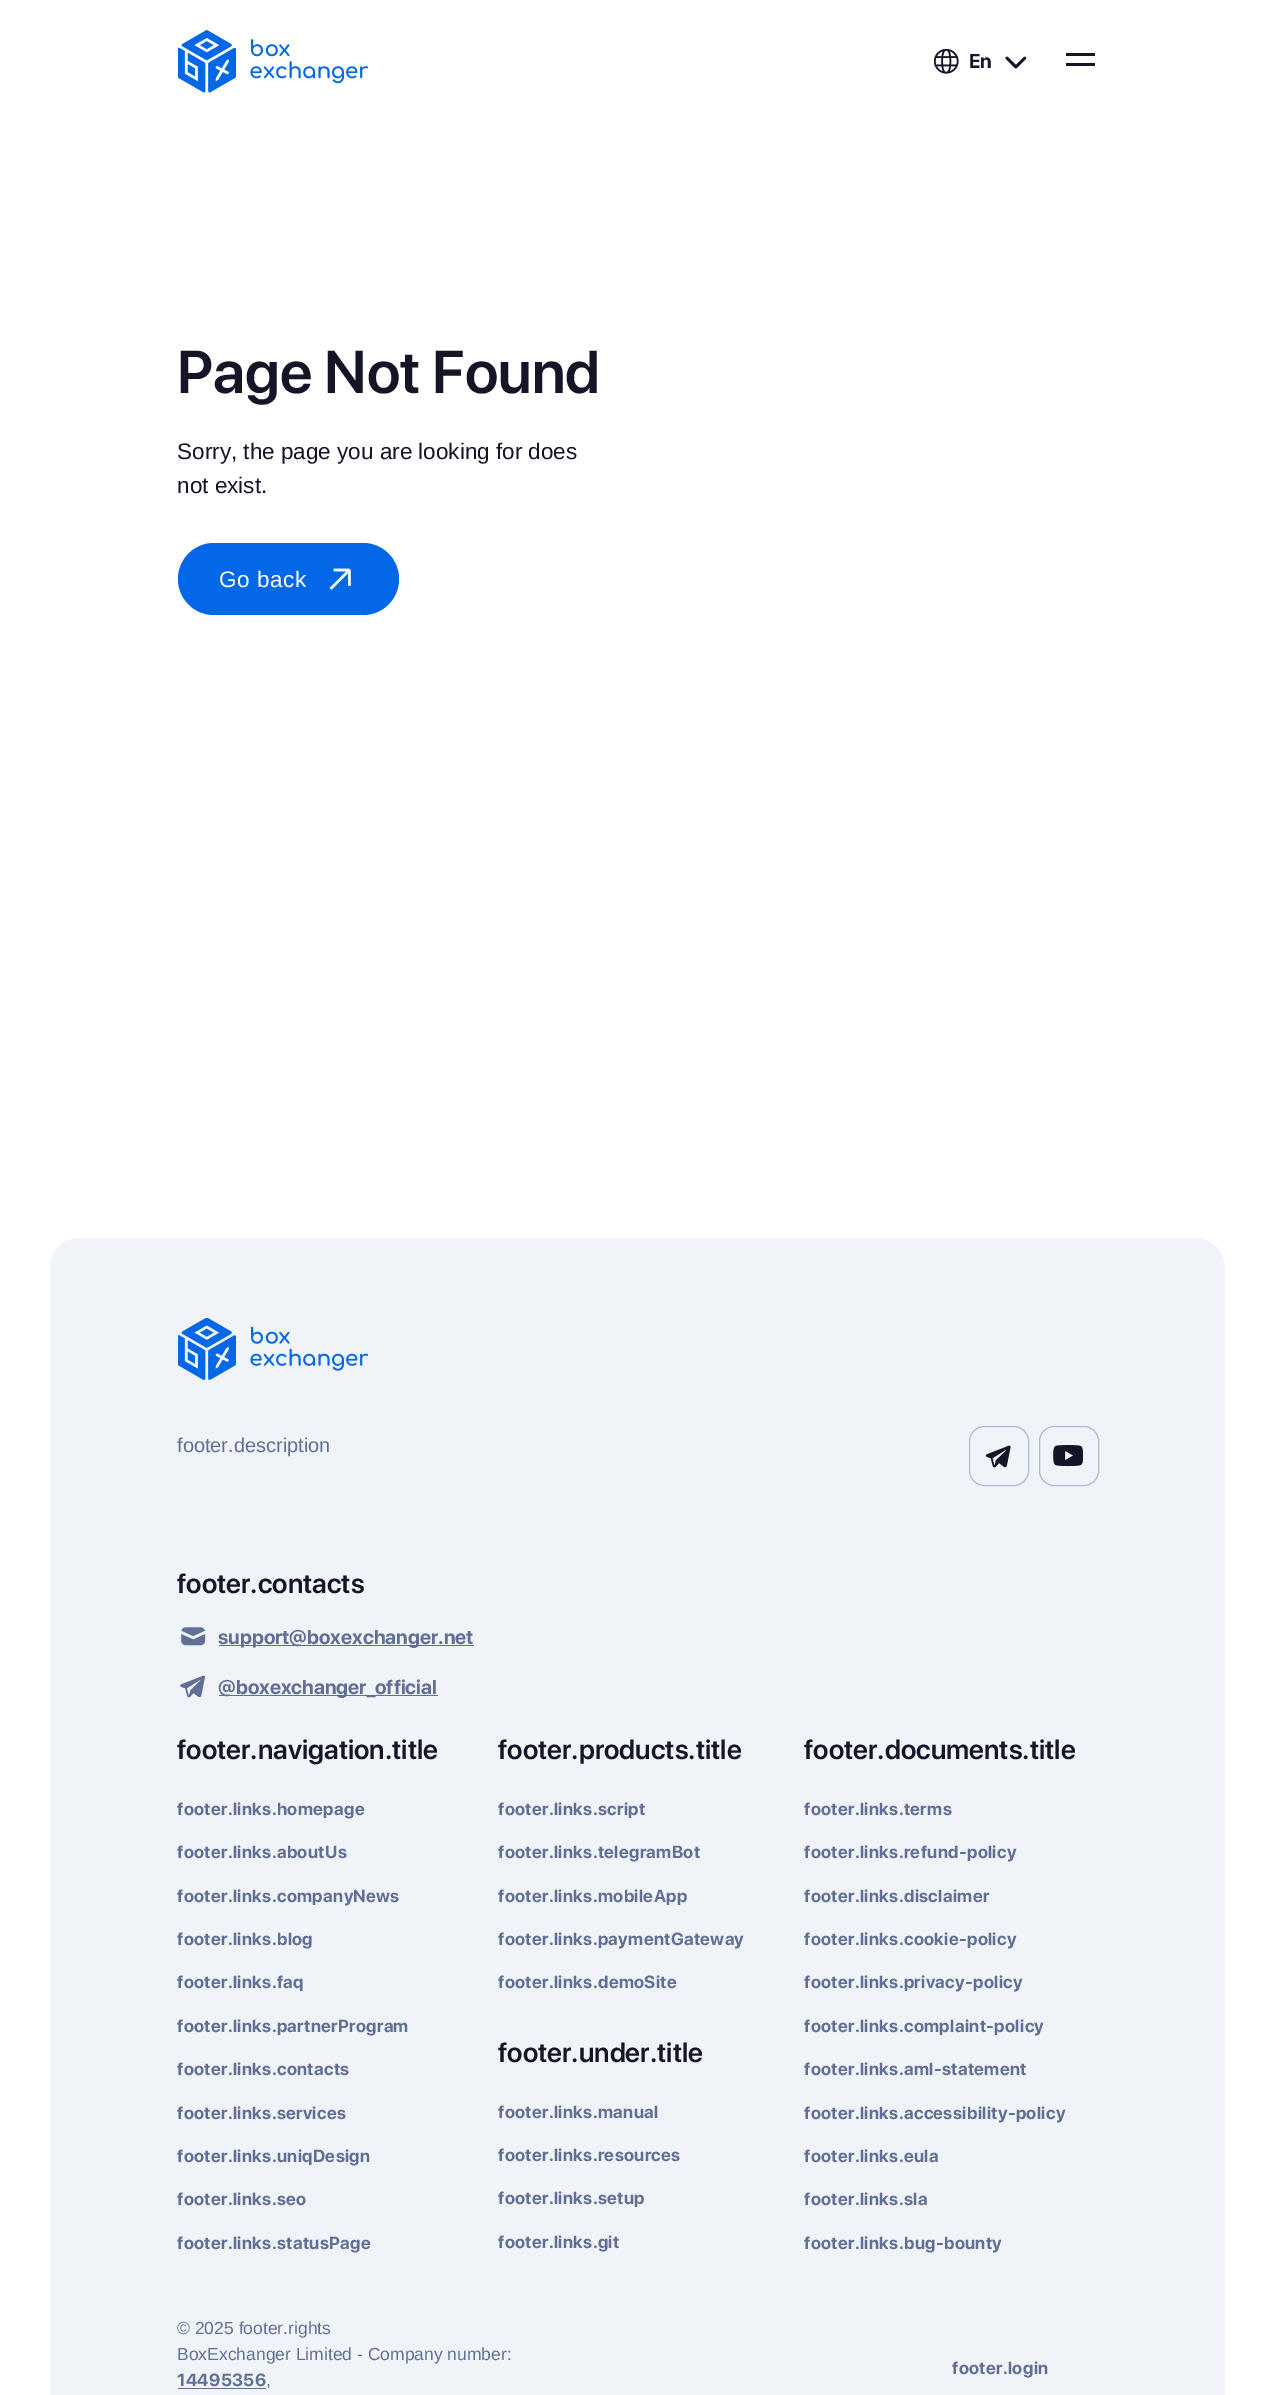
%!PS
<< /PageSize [1274 2395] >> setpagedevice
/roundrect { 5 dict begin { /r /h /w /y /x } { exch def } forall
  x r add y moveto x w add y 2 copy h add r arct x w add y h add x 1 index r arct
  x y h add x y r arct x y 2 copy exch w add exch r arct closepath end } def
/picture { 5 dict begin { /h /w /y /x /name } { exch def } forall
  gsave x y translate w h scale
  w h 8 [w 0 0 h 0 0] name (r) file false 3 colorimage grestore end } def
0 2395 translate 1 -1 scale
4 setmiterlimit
1 setgray
0 0 1274 2395 rectfill
(img1.rgb) 178 30 190 63 picture
(img2.rgb) 934 49 25 25 picture
/SFProDisplay-Bold [20 0 0 -20 0 0] selectfont
0.078 0.086 0.153 setrgbcolor
969 68 moveto (En) show
(img3.rgb) 1005 56 22 13 picture
1066 53 29 3 rectfill
1066 63 29 3 rectfill
/SFProDisplay-SemiBold [60 0 0 -60 0 0] selectfont
177 393 moveto (Page Not Found) show
/LiberationSans-Regular [22.5 0 0 -22.5 0 0] selectfont
177 459 moveto (Sorry, the page you are looking for does) show
177 493 moveto (not exist.) show
0.012 0.404 0.91 setrgbcolor
178 543 221 72 36 roundrect fill
1 setgray
219 587 moveto 0.5 0 (Go back) ashow
(img4.rgb) 329 568 22 22 picture
0.941 0.957 0.976 setrgbcolor
50 1238 1175 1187 30 roundrect fill
(img5.rgb) 178 1318 190 62 picture
/LiberationSans-Regular [20 0 0 -20 0 0] selectfont
0.38 0.435 0.588 setrgbcolor
177 1452 moveto (footer.description) show
0.682 0.729 0.855 setrgbcolor
969.5 1426.5 59 59 14.5 roundrect stroke
(img6.rgb) 985 1445 26 23 picture
1039.5 1426.5 59 59 14.5 roundrect stroke
(img7.rgb) 1053 1445 30 22 picture
/SFProDisplay-SemiBold [27.5 0 0 -27.5 0 0] selectfont
0.078 0.086 0.153 setrgbcolor
177 1593 moveto (footer.contacts) show
(img8.rgb) 181 1627 25 19 picture
0.38 0.435 0.588 setrgbcolor
219 1645 255 1 rectfill
/SFProDisplay-Bold [20 0 0 -20 0 0] selectfont
218 1644 moveto (support@boxexchanger.net) show
(img9.rgb) 180 1675 25 23 picture
219 1695 219 1 rectfill
218 1694 moveto (@boxexchanger_official) show
/SFProDisplay-SemiBold [27.5 0 0 -27.5 0 0] selectfont
0.078 0.086 0.153 setrgbcolor
177 1759 moveto (footer.navigation.title) show
/SFProDisplay-Bold [17.5 0 0 -17.5 0 0] selectfont
0.38 0.435 0.588 setrgbcolor
177 1815 moveto 0.35 0 (footer.links.homepage) ashow
177 1858 moveto 0.35 0 (footer.links.aboutUs) ashow
177 1902 moveto 0.35 0 (footer.links.companyNews) ashow
177 1945 moveto 0.35 0 (footer.links.blog) ashow
177 1988 moveto 0.35 0 (footer.links.faq) ashow
177 2032 moveto 0.35 0 (footer.links.partnerProgram) ashow
177 2075 moveto 0.35 0 (footer.links.contacts) ashow
177 2119 moveto 0.35 0 (footer.links.services) ashow
177 2162 moveto 0.35 0 (footer.links.uniqDesign) ashow
177 2205 moveto 0.35 0 (footer.links.seo) ashow
177 2249 moveto 0.35 0 (footer.links.statusPage) ashow
/SFProDisplay-SemiBold [27.5 0 0 -27.5 0 0] selectfont
0.078 0.086 0.153 setrgbcolor
498 1759 moveto (footer.products.title) show
/SFProDisplay-Bold [17.5 0 0 -17.5 0 0] selectfont
0.38 0.435 0.588 setrgbcolor
498 1815 moveto 0.35 0 (footer.links.script) ashow
498 1858 moveto 0.35 0 (footer.links.telegramBot) ashow
498 1902 moveto 0.35 0 (footer.links.mobileApp) ashow
498 1945 moveto 0.35 0 (footer.links.paymentGateway) ashow
498 1988 moveto 0.35 0 (footer.links.demoSite) ashow
/SFProDisplay-SemiBold [27.5 0 0 -27.5 0 0] selectfont
0.078 0.086 0.153 setrgbcolor
498 2062 moveto (footer.under.title) show
/SFProDisplay-Bold [17.5 0 0 -17.5 0 0] selectfont
0.38 0.435 0.588 setrgbcolor
498 2118 moveto 0.35 0 (footer.links.manual) ashow
498 2161 moveto 0.35 0 (footer.links.resources) ashow
498 2204 moveto 0.35 0 (footer.links.setup) ashow
498 2248 moveto 0.35 0 (footer.links.git) ashow
/SFProDisplay-SemiBold [27.5 0 0 -27.5 0 0] selectfont
0.078 0.086 0.153 setrgbcolor
804 1759 moveto (footer.documents.title) show
/SFProDisplay-Bold [17.5 0 0 -17.5 0 0] selectfont
0.38 0.435 0.588 setrgbcolor
804 1815 moveto 0.35 0 (footer.links.terms) ashow
804 1858 moveto 0.35 0 (footer.links.refund-policy) ashow
804 1902 moveto 0.35 0 (footer.links.disclaimer) ashow
804 1945 moveto 0.35 0 (footer.links.cookie-policy) ashow
804 1988 moveto 0.35 0 (footer.links.privacy-policy) ashow
804 2032 moveto 0.35 0 (footer.links.complaint-policy) ashow
804 2075 moveto 0.35 0 (footer.links.aml-statement) ashow
804 2119 moveto 0.35 0 (footer.links.accessibility-policy) ashow
804 2162 moveto 0.35 0 (footer.links.eula) ashow
804 2205 moveto 0.35 0 (footer.links.sla) ashow
804 2249 moveto 0.35 0 (footer.links.bug-bounty) ashow
/LiberationSans-Regular [17.5 0 0 -17.5 0 0] selectfont
177 2334 moveto (© 2025 footer.rights) show
177 2360 moveto (BoxExchanger Limited - Company number:) show
/SFProDisplay-Bold [17.5 0 0 -17.5 0 0] selectfont
177 2386 moveto 0.35 0 (14495356) ashow
178 2388 88 1 rectfill
/LiberationSans-Regular [17.5 0 0 -17.5 0 0] selectfont
266 2386 moveto (,) show
/SFProDisplay-Bold [17.5 0 0 -17.5 0 0] selectfont
952 2374 moveto 0.35 0 (footer.login) ashow
showpage
